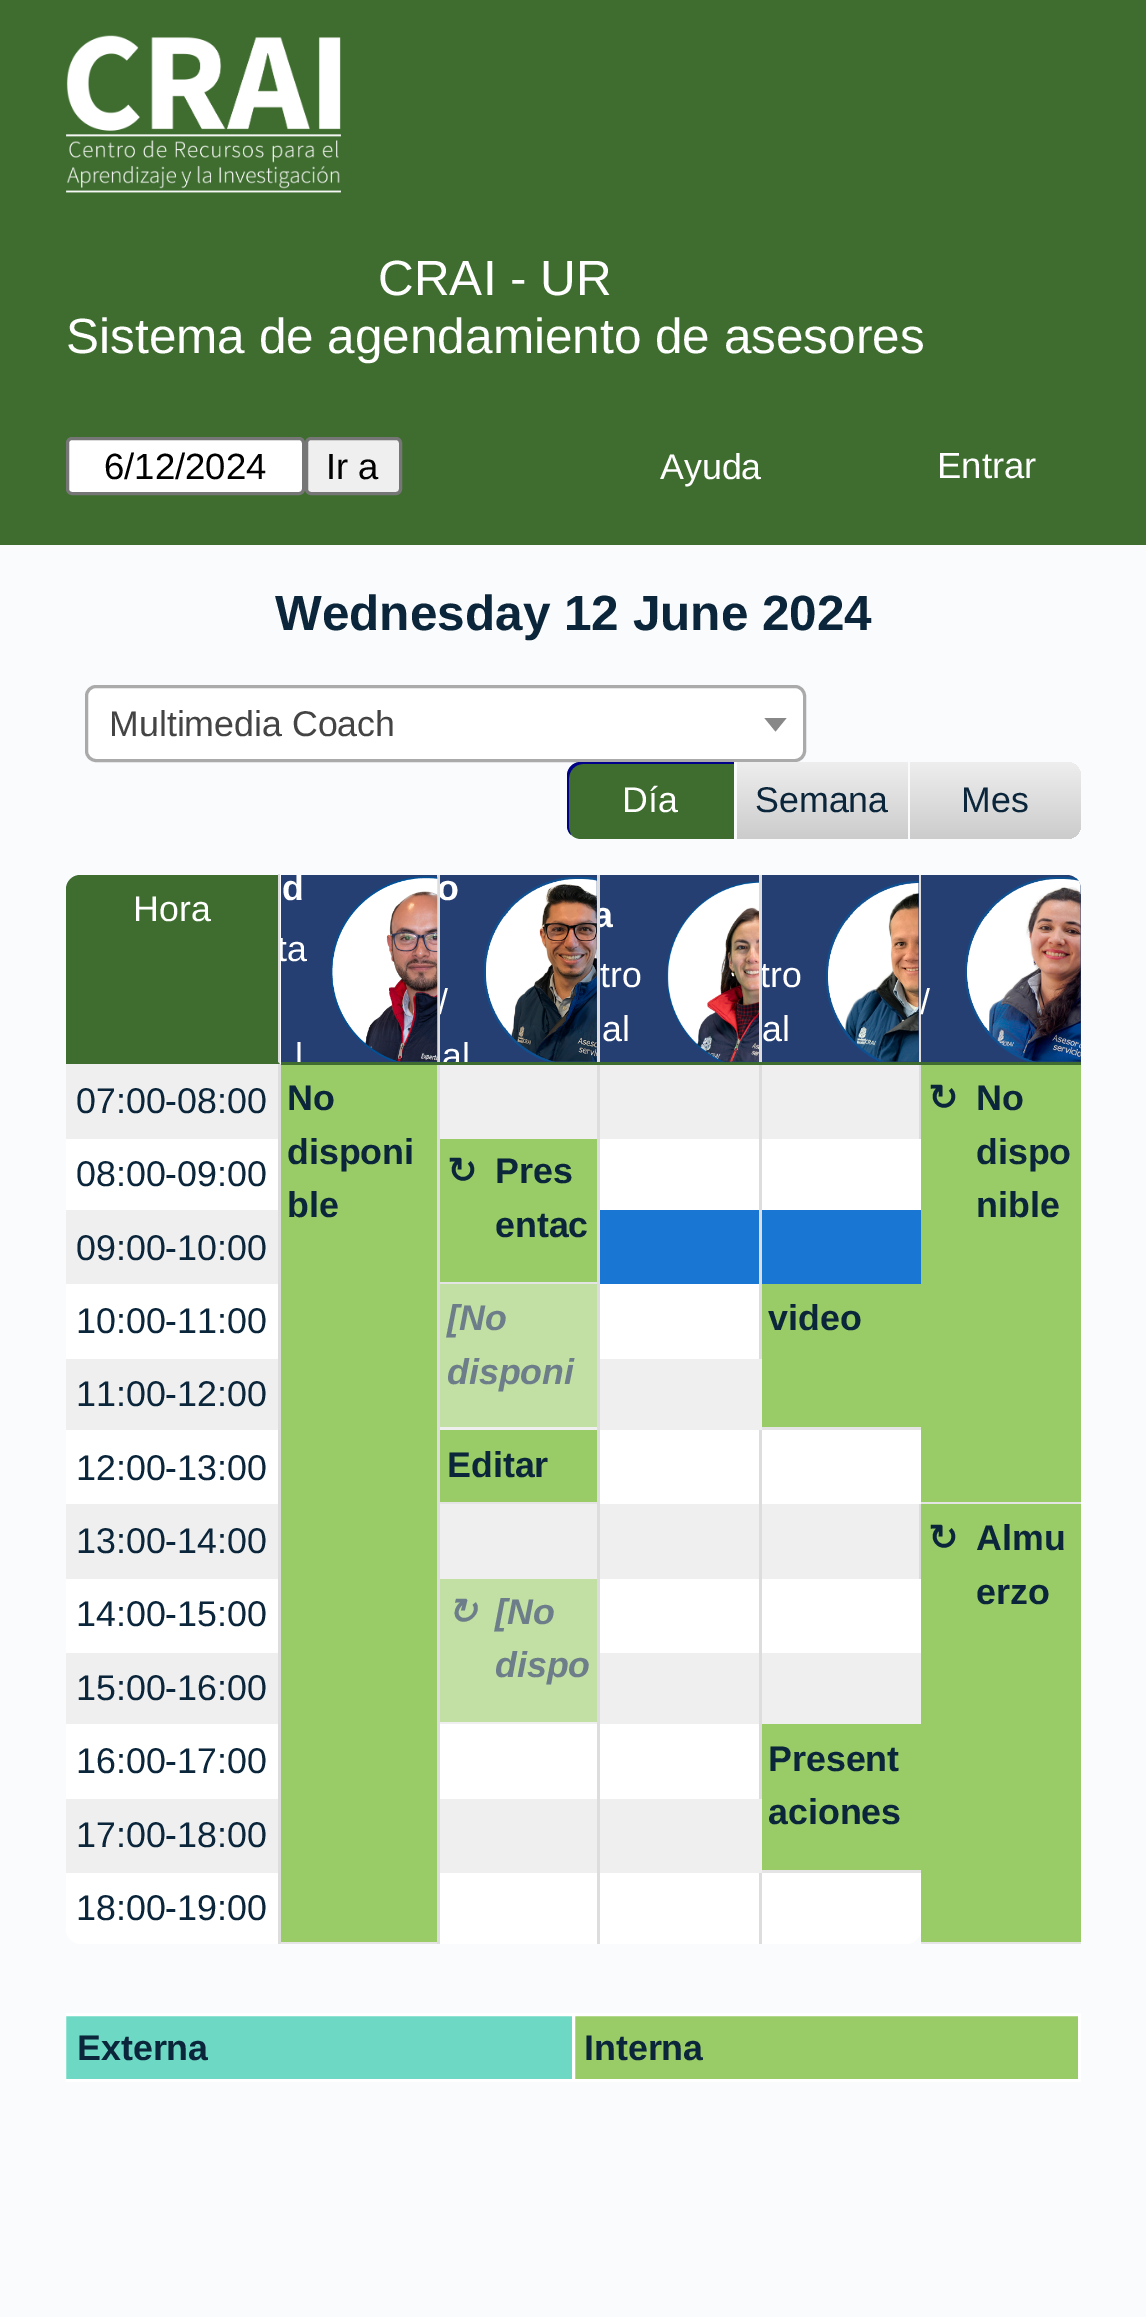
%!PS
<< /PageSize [1146 2317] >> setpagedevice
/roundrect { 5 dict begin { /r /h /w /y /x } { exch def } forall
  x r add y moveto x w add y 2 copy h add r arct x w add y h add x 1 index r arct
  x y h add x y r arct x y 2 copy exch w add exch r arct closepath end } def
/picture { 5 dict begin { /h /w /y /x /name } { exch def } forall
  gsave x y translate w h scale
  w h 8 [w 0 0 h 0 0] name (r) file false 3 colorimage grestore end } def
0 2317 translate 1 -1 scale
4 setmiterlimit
0.976 0.984 0.988 setrgbcolor
0 0 1146 2317 rectfill
0.247 0.427 0.188 setrgbcolor
0 0 1146 545 rectfill
(img1.rgb) 66 35 275 158 picture
/LiberationSans-Regular [49.5 0 0 -49.5 0 0] selectfont
1 setgray
378 295 moveto (CRAI - UR) show
66 353 moveto (Sistema de agendamiento de asesores) show
67.5 438.5 236 55 4.5 roundrect gsave fill grestore
0.463 setgray
3 setlinewidth
stroke
/LiberationSans-Regular [36.5 0 0 -36.5 0 0] selectfont
0 setgray
104 479 moveto (6/12/2024) show
0.937 setgray
306.5 438.5 94 55 4.5 roundrect gsave fill grestore
0.463 setgray
stroke
0 setgray
326 479 moveto (Ir a) show
/LiberationSans-Regular [35.75 0 0 -35.75 0 0] selectfont
1 setgray
660 479 moveto (Ayuda) show
/LiberationSans-Regular [36.5 0 0 -36.5 0 0] selectfont
937 478 moveto (Entrar) show
/LiberationSans-Bold [49.5 0 0 -49.5 0 0] selectfont
0.043 0.149 0.231 setrgbcolor
275 630 moveto (Wednesday 12 June 2024) show
1 setgray
86.5 686.5 718 74 9.5 roundrect gsave fill grestore
0.667 setgray
stroke
/LiberationSans-Regular [35.75 0 0 -35.75 0 0] selectfont
0.267 setgray
109 736 moveto (Multimedia Coach) show
0.533 setgray
newpath 764.5 718 moveto 786.5 718 lineto 775.5 731.5 lineto closepath fill
0.247 0.427 0.188 setrgbcolor
newpath 581 762 moveto 737 762 lineto 737 839 lineto 581 839 lineto 573.5 839 567 832.5 567 825 curveto 567 776 lineto 567 768.5 573.5 762 581 762 curveto closepath fill
0 0 0.545 setrgbcolor
newpath 583 764 moveto 734 764 lineto 734 762 lineto 581 762 lineto 573 762 567 768 567 776 curveto 567 825 lineto 567 829 568 832 571 835 curveto 570 832 569 830 569 828 curveto 569 778 lineto 569 771 575 764 583 764 curveto closepath fill
0.976 0.984 0.988 setrgbcolor
734 762 3 77 rectfill
1 setgray
622 812 moveto (Día) show
gsave newpath 737 762 moveto 908 762 lineto 908 839 lineto 737 839 lineto closepath clip newpath
<< /ShadingType 2 /ColorSpace /DeviceRGB /Coords [822 762 822 839] /Extend [true true] /Function << /FunctionType 2 /Domain [0 1] /C0 [0.933 0.933 0.933] /C1 [0.8 0.8 0.8] /N 1 >> >> shfill grestore
0.043 0.149 0.231 setrgbcolor
755 812 moveto (Semana) show
gsave newpath 910 762 moveto 1067 762 lineto 1074.5 762 1081 768.5 1081 776 curveto 1081 825 lineto 1081 832.5 1074.5 839 1067 839 curveto 910 839 lineto closepath clip newpath
<< /ShadingType 2 /ColorSpace /DeviceRGB /Coords [996 762 996 839] /Extend [true true] /Function << /FunctionType 2 /Domain [0 1] /C0 [0.933 0.933 0.933] /C1 [0.8 0.8 0.8] /N 1 >> >> shfill grestore
961 812 moveto (Mes) show
0.247 0.427 0.188 setrgbcolor
newpath 80 875 moveto 278 875 lineto 278 1062 lineto 66 1062 lineto 66 889 lineto 66 881.5 72.5 875 80 875 curveto closepath fill
0.867 setgray
newpath 278 1062 moveto 278 874 lineto 280 874 lineto 280 1064 lineto closepath fill
0.247 0.427 0.188 setrgbcolor
newpath 66 1062 moveto 66 1064 lineto 280 1064 lineto 278 1062 lineto closepath fill
1 setgray
133 921 moveto (Hora) show
0.149 0.247 0.451 setrgbcolor
281 875 156 187 rectfill
0.867 setgray
437 875 3 1069 rectfill
597 875 3 1069 rectfill
759 875 3 484 rectfill
919 875 2 264 rectfill
0.247 0.427 0.188 setrgbcolor
281 1062 800 3 rectfill
gsave
281 875 156 187 rectclip
/LiberationSans-Bold [35.75 0 0 -35.75 0 0] selectfont
1 setgray
282 900 moveto (d) show
/LiberationSans-Regular [35.75 0 0 -35.75 0 0] selectfont
277 961 moveto (ta) show
295 1068 moveto (l) show
grestore
(img2.rgb) 330 876 108 186 picture
0.149 0.247 0.451 setrgbcolor
440 875 157 187 rectfill
gsave
440 875 157 187 rectclip
/LiberationSans-Bold [35.75 0 0 -35.75 0 0] selectfont
1 setgray
437 900 moveto (o) show
/LiberationSans-Regular [35.75 0 0 -35.75 0 0] selectfont
438 1014 moveto (/) show
442 1068 moveto (al) show
grestore
(img3.rgb) 483 877 114 185 picture
600 875 159 187 rectfill
gsave
600 875 159 187 rectclip
/LiberationSans-Bold [35.75 0 0 -35.75 0 0] selectfont
1 setgray
593 927 moveto (a) show
grestore
1 setgray
600 987 moveto (tro) show
602 1041 moveto (al) show
(img4.rgb) 666 881 93 181 picture
0.149 0.247 0.451 setrgbcolor
762 875 157 187 rectfill
gsave
762 875 157 187 rectclip
1 setgray
760 987 moveto (tro) show
grestore
1 setgray
762 1041 moveto (al) show
(img5.rgb) 826 881 93 181 picture
0.149 0.247 0.451 setrgbcolor
newpath 921 875 moveto 1067 875 lineto 1074.5 875 1081 881.5 1081 889 curveto 1081 1062 lineto 921 1062 lineto closepath fill
1 setgray
920 1014 moveto (/) show
(img6.rgb) 965 877 116 185 picture
0.937 setgray
66 1064 212 75 rectfill
0.867 setgray
278 1064 3 880 rectfill
0.043 0.149 0.231 setrgbcolor
76 1113 moveto (07:00-08:00) show
0.6 0.8 0.4 setrgbcolor
281 1065 156 877 rectfill
0.894 setgray
281 1942 156 2 rectfill
/LiberationSans-Bold [35.75 0 0 -35.75 0 0] selectfont
0.043 0.149 0.231 setrgbcolor
287 1110 moveto (No) show
287 1164 moveto (disponi) show
287 1217 moveto (ble) show
0.937 setgray
440 1065 157 74 rectfill
600 1065 159 74 rectfill
762 1065 157 74 rectfill
0.6 0.8 0.4 setrgbcolor
921 1065 160 437 rectfill
0.894 setgray
921 1502 160 2 rectfill
/DejaVuSans-Bold [35.75 0 0 -35.75 0 0] selectfont
0.043 0.149 0.231 setrgbcolor
928 1110 moveto (↻) show
/LiberationSans-Bold [35.75 0 0 -35.75 0 0] selectfont
976 1110 moveto (No) show
976 1164 moveto (dispo) show
976 1217 moveto (nible) show
1 setgray
66 1139 212 71 rectfill
/LiberationSans-Regular [35.75 0 0 -35.75 0 0] selectfont
0.043 0.149 0.231 setrgbcolor
76 1186 moveto (08:00-09:00) show
0.6 0.8 0.4 setrgbcolor
440 1139 157 143 rectfill
0.894 setgray
440 1282 157 2 rectfill
/DejaVuSans-Bold [35.75 0 0 -35.75 0 0] selectfont
0.043 0.149 0.231 setrgbcolor
447 1183 moveto (↻) show
/LiberationSans-Bold [35.75 0 0 -35.75 0 0] selectfont
495 1183 moveto (Pres) show
495 1237 moveto (entac) show
1 setgray
600 1139 159 71 rectfill
762 1139 159 71 rectfill
0.937 setgray
66 1210 212 74 rectfill
/LiberationSans-Regular [35.75 0 0 -35.75 0 0] selectfont
0.043 0.149 0.231 setrgbcolor
76 1260 moveto (09:00-10:00) show
0.098 0.463 0.824 setrgbcolor
600 1210 159 74 rectfill
762 1210 159 74 rectfill
1 setgray
66 1284 212 75 rectfill
0.043 0.149 0.231 setrgbcolor
76 1333 moveto (10:00-11:00) show
0.761 0.878 0.639 setrgbcolor
440 1284 157 143 rectfill
0.937 setgray
440 1427 157 3 rectfill
/LiberationSans-BoldItalic [35.75 0 0 -35.75 0 0] selectfont
0.427 0.49 0.537 setrgbcolor
447 1330 moveto ([No) show
447 1384 moveto (disponi) show
1 setgray
600 1284 159 75 rectfill
0.6 0.8 0.4 setrgbcolor
762 1284 159 143 rectfill
0.894 setgray
762 1427 159 3 rectfill
/LiberationSans-Bold [35.75 0 0 -35.75 0 0] selectfont
0.043 0.149 0.231 setrgbcolor
768 1330 moveto (video) show
0.937 setgray
66 1359 212 71 rectfill
/LiberationSans-Regular [35.75 0 0 -35.75 0 0] selectfont
0.043 0.149 0.231 setrgbcolor
76 1406 moveto (11:00-12:00) show
0.937 setgray
600 1359 162 71 rectfill
1 setgray
66 1430 212 74 rectfill
0.043 0.149 0.231 setrgbcolor
76 1480 moveto (12:00-13:00) show
0.6 0.8 0.4 setrgbcolor
440 1430 157 72 rectfill
0.894 setgray
440 1502 157 2 rectfill
/LiberationSans-Bold [35.75 0 0 -35.75 0 0] selectfont
0.043 0.149 0.231 setrgbcolor
447 1477 moveto (Editar) show
1 setgray
600 1430 159 74 rectfill
0.867 setgray
759 1430 3 369 rectfill
1 setgray
762 1430 159 74 rectfill
0.937 setgray
66 1504 212 75 rectfill
/LiberationSans-Regular [35.75 0 0 -35.75 0 0] selectfont
0.043 0.149 0.231 setrgbcolor
76 1553 moveto (13:00-14:00) show
0.937 setgray
440 1504 157 75 rectfill
600 1504 159 75 rectfill
762 1504 157 75 rectfill
0.867 setgray
919 1504 2 75 rectfill
0.6 0.8 0.4 setrgbcolor
921 1504 160 438 rectfill
0.894 setgray
921 1942 160 2 rectfill
/DejaVuSans-Bold [35.75 0 0 -35.75 0 0] selectfont
0.043 0.149 0.231 setrgbcolor
928 1550 moveto (↻) show
/LiberationSans-Bold [35.75 0 0 -35.75 0 0] selectfont
976 1550 moveto (Almu) show
976 1604 moveto (erzo) show
1 setgray
66 1579 212 74 rectfill
/LiberationSans-Regular [35.75 0 0 -35.75 0 0] selectfont
0.043 0.149 0.231 setrgbcolor
76 1626 moveto (14:00-15:00) show
0.761 0.878 0.639 setrgbcolor
440 1579 157 143 rectfill
0.937 setgray
440 1722 157 2 rectfill
/DejaVuSans-BoldItalic [35.75 0 0 -35.75 0 0] selectfont
0.427 0.49 0.537 setrgbcolor
447 1624 moveto (↻) show
/LiberationSans-BoldItalic [35.75 0 0 -35.75 0 0] selectfont
495 1624 moveto ([No) show
495 1677 moveto (dispo) show
1 setgray
600 1579 159 74 rectfill
762 1579 159 74 rectfill
0.937 setgray
66 1653 212 71 rectfill
/LiberationSans-Regular [35.75 0 0 -35.75 0 0] selectfont
0.043 0.149 0.231 setrgbcolor
76 1700 moveto (15:00-16:00) show
0.937 setgray
600 1653 159 71 rectfill
762 1653 159 71 rectfill
1 setgray
66 1724 212 75 rectfill
0.043 0.149 0.231 setrgbcolor
76 1773 moveto (16:00-17:00) show
1 setgray
440 1724 157 75 rectfill
600 1724 159 75 rectfill
0.6 0.8 0.4 setrgbcolor
762 1724 159 146 rectfill
0.894 setgray
762 1870 159 3 rectfill
/LiberationSans-Bold [35.75 0 0 -35.75 0 0] selectfont
0.043 0.149 0.231 setrgbcolor
768 1771 moveto (Present) show
768 1824 moveto (aciones) show
0.937 setgray
66 1799 212 74 rectfill
/LiberationSans-Regular [35.75 0 0 -35.75 0 0] selectfont
0.043 0.149 0.231 setrgbcolor
76 1847 moveto (17:00-18:00) show
0.937 setgray
440 1799 157 74 rectfill
600 1799 162 74 rectfill
1 setgray
newpath 66 1873 moveto 278 1873 lineto 278 1944 lineto 80 1944 lineto 72.5 1944 66 1937.5 66 1930 curveto closepath fill
0.043 0.149 0.231 setrgbcolor
76 1920 moveto (18:00-19:00) show
1 setgray
440 1873 157 71 rectfill
600 1873 159 71 rectfill
0.867 setgray
759 1873 3 71 rectfill
1 setgray
newpath 762 1873 moveto 921 1873 lineto 921 1930 lineto 921 1937.5 914.5 1944 907 1944 curveto 762 1944 lineto closepath fill
0.427 0.851 0.769 setrgbcolor
66 2016 506 63 rectfill
gsave
66 545 1015 1537 rectclip
1 setgray
64.5 2014.5 509 66 rectstroke
grestore
/LiberationSans-Bold [35.75 0 0 -35.75 0 0] selectfont
0.043 0.149 0.231 setrgbcolor
77 2060 moveto (Externa) show
0.6 0.8 0.4 setrgbcolor
newpath 573.5 2014.5 moveto 1079.5 2014.5 lineto 1079.5 2080.5 lineto 573.5 2080.5 lineto closepath gsave fill grestore
1 setgray
stroke
0.043 0.149 0.231 setrgbcolor
584 2060 moveto (Interna) show
showpage
